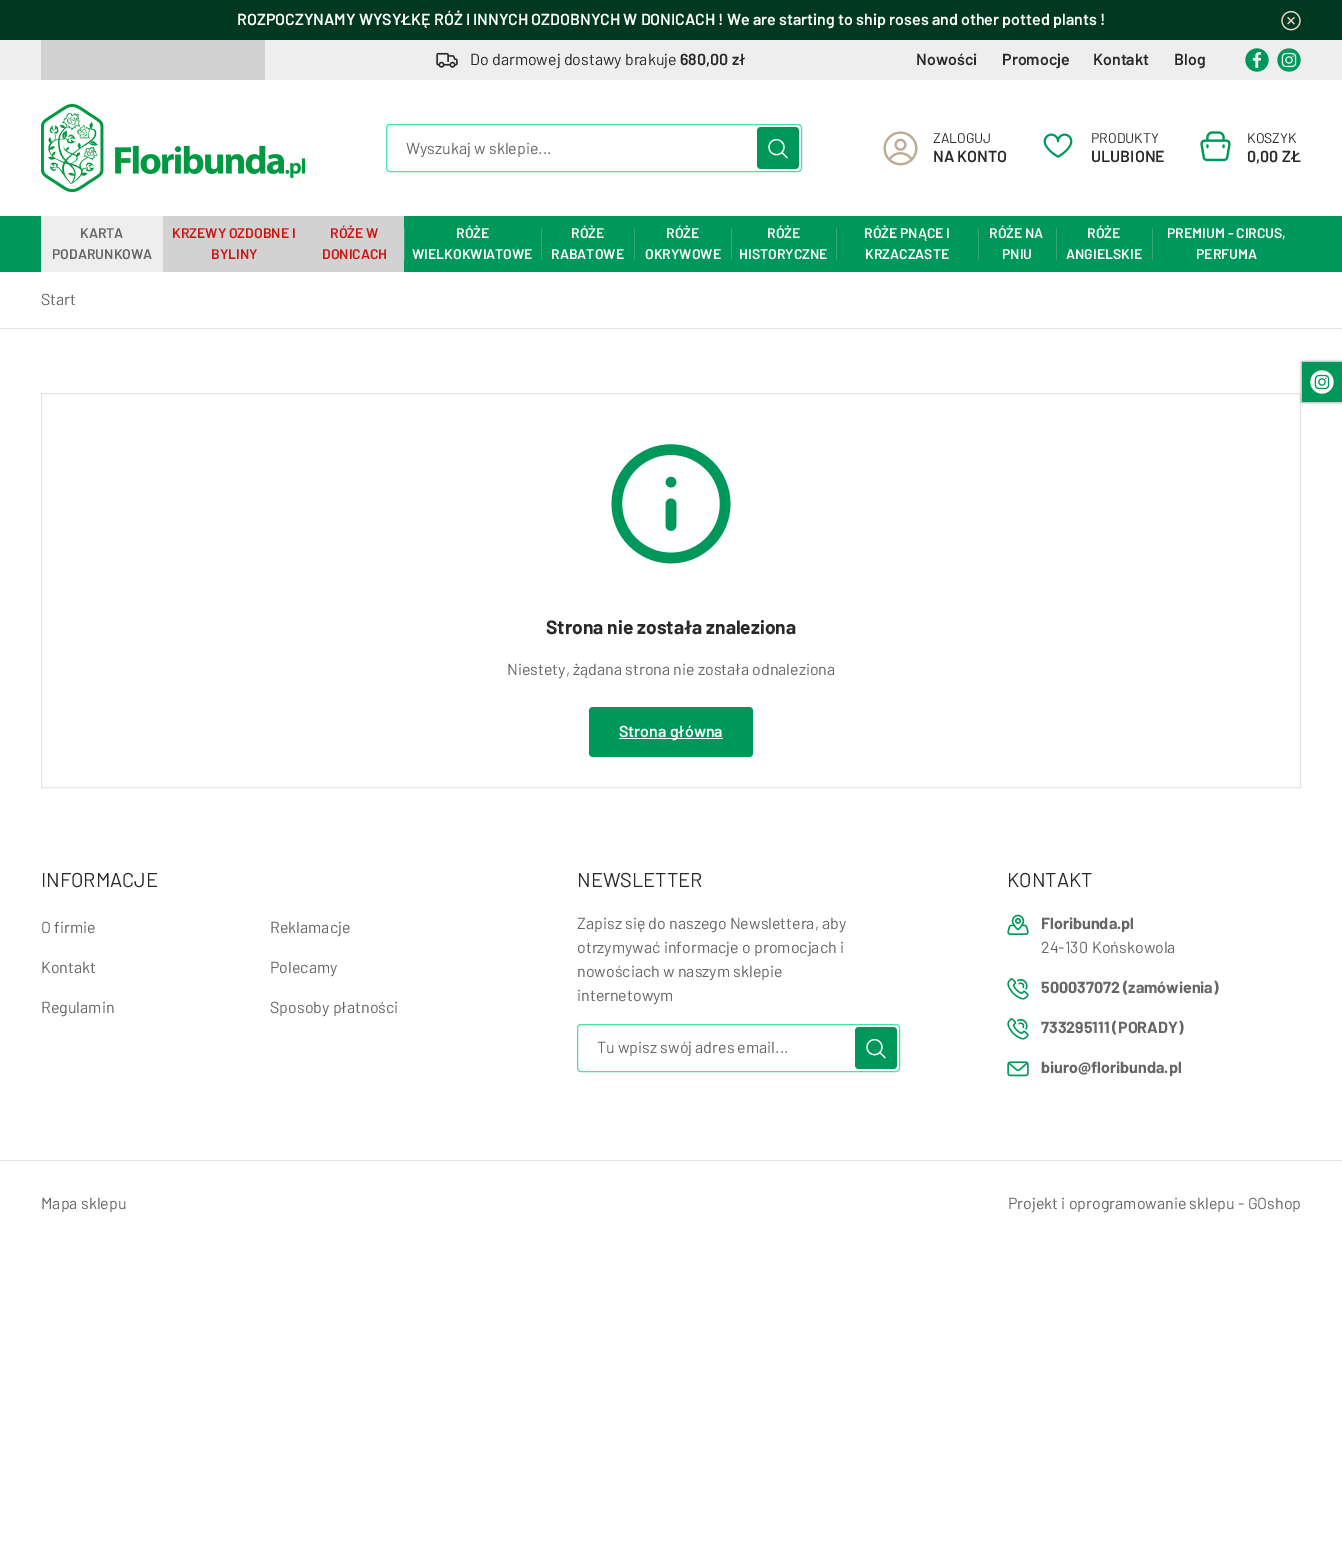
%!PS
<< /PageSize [1342 1559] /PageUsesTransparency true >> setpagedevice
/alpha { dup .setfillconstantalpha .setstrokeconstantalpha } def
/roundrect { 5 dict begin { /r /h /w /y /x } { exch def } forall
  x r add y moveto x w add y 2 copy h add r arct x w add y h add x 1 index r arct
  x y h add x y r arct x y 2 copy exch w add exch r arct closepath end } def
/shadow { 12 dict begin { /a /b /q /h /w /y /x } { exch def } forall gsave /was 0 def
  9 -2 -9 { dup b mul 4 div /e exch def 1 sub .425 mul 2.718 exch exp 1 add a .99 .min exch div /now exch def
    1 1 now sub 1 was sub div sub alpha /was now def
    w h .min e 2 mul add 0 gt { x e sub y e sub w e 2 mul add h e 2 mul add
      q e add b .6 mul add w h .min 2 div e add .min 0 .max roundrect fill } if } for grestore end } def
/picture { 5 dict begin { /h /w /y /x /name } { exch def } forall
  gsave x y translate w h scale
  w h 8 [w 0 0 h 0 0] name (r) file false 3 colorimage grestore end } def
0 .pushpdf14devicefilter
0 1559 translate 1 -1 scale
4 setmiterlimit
1 setgray
0 0 1342 1559 rectfill
0 0.22 0.129 setrgbcolor
0 0 1342 40 rectfill
/Barlow-SemiBold [16 0 0 -16 0 0] selectfont
1 setgray
237 25 moveto (ROZPOCZYNAMY WYSYŁKĘ RÓŻ I INNYCH OZDOBNYCH W DONICACH ! We are starting to ship roses and other potted plants !) show
(img1.rgb) 1281 10 20 21 picture
0.933 setgray
0 40 1342 40 rectfill
0.824 setgray
41 40 224 40 rectfill
(img2.rgb) 436 52 22 16 picture
/Barlow-Regular [16 0 0 -16 0 0] selectfont
0.161 setgray
470 65 moveto (Do darmowej dostawy brakuje) show
/Barlow-SemiBold [16 0 0 -16 0 0] selectfont
680 65 moveto (680,00 zł) show
916 65 moveto (Nowości) show
1002 65 moveto (Promocje) show
1093 65 moveto (Kontakt) show
1174 65 moveto (Blog) show
(img3.rgb) 1245 48 24 24 picture
(img4.rgb) 1277 48 24 24 picture
(img5.rgb) 41 104 264 88 picture
0.267 0.89 0.639 setrgbcolor
386.5 124.5 415 47 3.5 roundrect stroke
gsave
406 140 332 17 rectclip
/Barlow-Regular [16 0 0 -16 0 0] selectfont
0.4 setgray
406 154 moveto (Wyszukaj w sklepie...) show
grestore
0 0.592 0.353 setrgbcolor
757 127 42 42 4 roundrect fill
(img6.rgb) 768 138 20 21 picture
(img7.rgb) 883 131 35 35 picture
/Barlow-Regular [14 0 0 -14 0 0] selectfont
0.161 setgray
933 143 moveto (ZALOGUJ) show
/Barlow-SemiBold [16 0 0 -16 0 0] selectfont
933 162 moveto (NA KONTO) show
(img8.rgb) 1043 133 30 25 picture
/Barlow-Regular [14 0 0 -14 0 0] selectfont
1091 143 moveto (PRODUKTY) show
/Barlow-SemiBold [16 0 0 -16 0 0] selectfont
1091 162 moveto (ULUBIONE) show
(img9.rgb) 1200 131 31 31 picture
/Barlow-Regular [14 0 0 -14 0 0] selectfont
1247 143 moveto (KOSZYK) show
/Barlow-SemiBold [16 0 0 -16 0 0] selectfont
1247 162 moveto (0,00 ZŁ) show
0 0.592 0.353 setrgbcolor
0 216 1342 56 rectfill
0.933 setgray
41 216 122 56 rectfill
/Barlow-SemiBold [14 0 0 -14 0 0] selectfont
0.4 setgray
80 238 moveto (KARTA) show
52 259 moveto (PODARUNKOWA) show
0.824 setgray
163 216 241 56 rectfill
0.8 0.086 0.086 setrgbcolor
172 238 moveto (KRZEWY OZDOBNE I) show
211 259 moveto (BYLINY) show
330 238 moveto (RÓŻE W) show
322 259 moveto (DONICACH) show
0.2 0.655 0.471 setrgbcolor
404 228 1 32 rectfill
1 setgray
456 238 moveto (RÓŻE) show
412 259 moveto (WIELKOKWIATOWE) show
0.2 0.655 0.471 setrgbcolor
541 228 1 32 rectfill
1 setgray
571 238 moveto (RÓŻE) show
551 259 moveto (RABATOWE) show
0.2 0.655 0.471 setrgbcolor
634 228 1 32 rectfill
1 setgray
666 238 moveto (RÓŻE) show
645 259 moveto (OKRYWOWE) show
0.2 0.655 0.471 setrgbcolor
731 228 1 32 rectfill
1 setgray
767 238 moveto (RÓŻE) show
739 259 moveto (HISTORYCZNE) show
0.2 0.655 0.471 setrgbcolor
836 228 1 32 rectfill
1 setgray
864 238 moveto (RÓŻE PNĄCE I) show
865 259 moveto (KRZACZASTE) show
0.2 0.655 0.471 setrgbcolor
978 228 1 32 rectfill
1 setgray
989 238 moveto (RÓŻE NA) show
1002 259 moveto (PNIU) show
0.2 0.655 0.471 setrgbcolor
1056 228 1 32 rectfill
1 setgray
1087 238 moveto (RÓŻE) show
1066 259 moveto (ANGIELSKIE) show
0.2 0.655 0.471 setrgbcolor
1152 228 1 32 rectfill
1 setgray
1167 238 moveto (PREMIUM - CIRCUS,) show
1196 259 moveto (PERFUMA) show
/Barlow-Regular [16 0 0 -16 0 0] selectfont
0.4 setgray
41 305 moveto (Start) show
0.894 setgray
0 328 1342 1 rectfill
41.5 393.5 1259 394 rectstroke
(img10.rgb) 611 444 120 120 picture
/Barlow-Bold [19.25 0 0 -19.25 0 0] selectfont
0.161 setgray
546 634 moveto (Strona nie została znaleziona) show
/Barlow-Regular [16 0 0 -16 0 0] selectfont
0.4 setgray
507 675 moveto (Niestety, żądana strona nie została odnaleziona) show
0 0.592 0.353 setrgbcolor
589 707 164 50 4 roundrect fill
1 setgray
619 738 104 1 rectfill
/Barlow-SemiBold [16 0 0 -16 0 0] selectfont
619 737 moveto (Strona główna) show
/Barlow-Regular [20 0 0 -20 0 0] selectfont
0.161 setgray
41 887 moveto (INFORMACJE) show
/Barlow-Regular [16 0 0 -16 0 0] selectfont
0.4 setgray
41 933 moveto (O firmie) show
270 933 moveto (Reklamacje) show
41 973 moveto (Kontakt) show
270 973 moveto (Polecamy) show
41 1013 moveto (Regulamin) show
270 1013 moveto (Sposoby płatności) show
/Barlow-Regular [20 0 0 -20 0 0] selectfont
0.161 setgray
577 887 moveto (NEWSLETTER) show
/Barlow-Regular [16 0 0 -16 0 0] selectfont
0.4 setgray
577 929 moveto (Zapisz się do naszego Newslettera, aby) show
577 953 moveto (otrzymywać informacje o promocjach i) show
577 977 moveto (nowościach w naszym sklepie) show
577 1001 moveto (internetowym) show
0.267 0.89 0.639 setrgbcolor
577.5 1024.5 322 47 3.5 roundrect stroke
gsave
597 1039 239 17 rectclip
0.4 setgray
597 1053 moveto (Tu wpisz swój adres email...) show
grestore
0 0.592 0.353 setrgbcolor
855 1027 42 42 4 roundrect fill
(img6.rgb) 866 1038 20 21 picture
/Barlow-Regular [20 0 0 -20 0 0] selectfont
0.161 setgray
1007 887 moveto (KONTAKT) show
(img11.rgb) 1007 914 22 21 picture
/Barlow-Bold [16 0 0 -16 0 0] selectfont
0.4 setgray
1041 929 moveto (Floribunda.pl) show
/Barlow-Regular [16 0 0 -16 0 0] selectfont
1041 953 moveto (24-130) show
1092 953 moveto (Końskowola) show
(img12.rgb) 1007 978 22 22 picture
/Barlow-Bold [16 0 0 -16 0 0] selectfont
1041 993 moveto (500037072 \(zamówienia\)) show
(img12.rgb) 1007 1018 22 22 picture
1041 1033 moveto (733295111 \(PORADY\)) show
(img13.rgb) 1007 1061 22 16 picture
1041 1073 moveto (biuro@floribunda.pl) show
0.894 setgray
0 1160 1342 1 rectfill
/Barlow-Regular [16 0 0 -16 0 0] selectfont
0.4 setgray
41 1209 moveto (Mapa sklepu) show
1008 1209 moveto (Projekt i oprogramowanie sklepu - GOshop) show
0 setgray
1302 362 40 40 0 1.5 0.5 shadow
0 0.592 0.353 setrgbcolor
1302 362 40 40 rectfill
(img14.rgb) 1310 370 24 24 picture
.poppdf14devicefilter showpage
